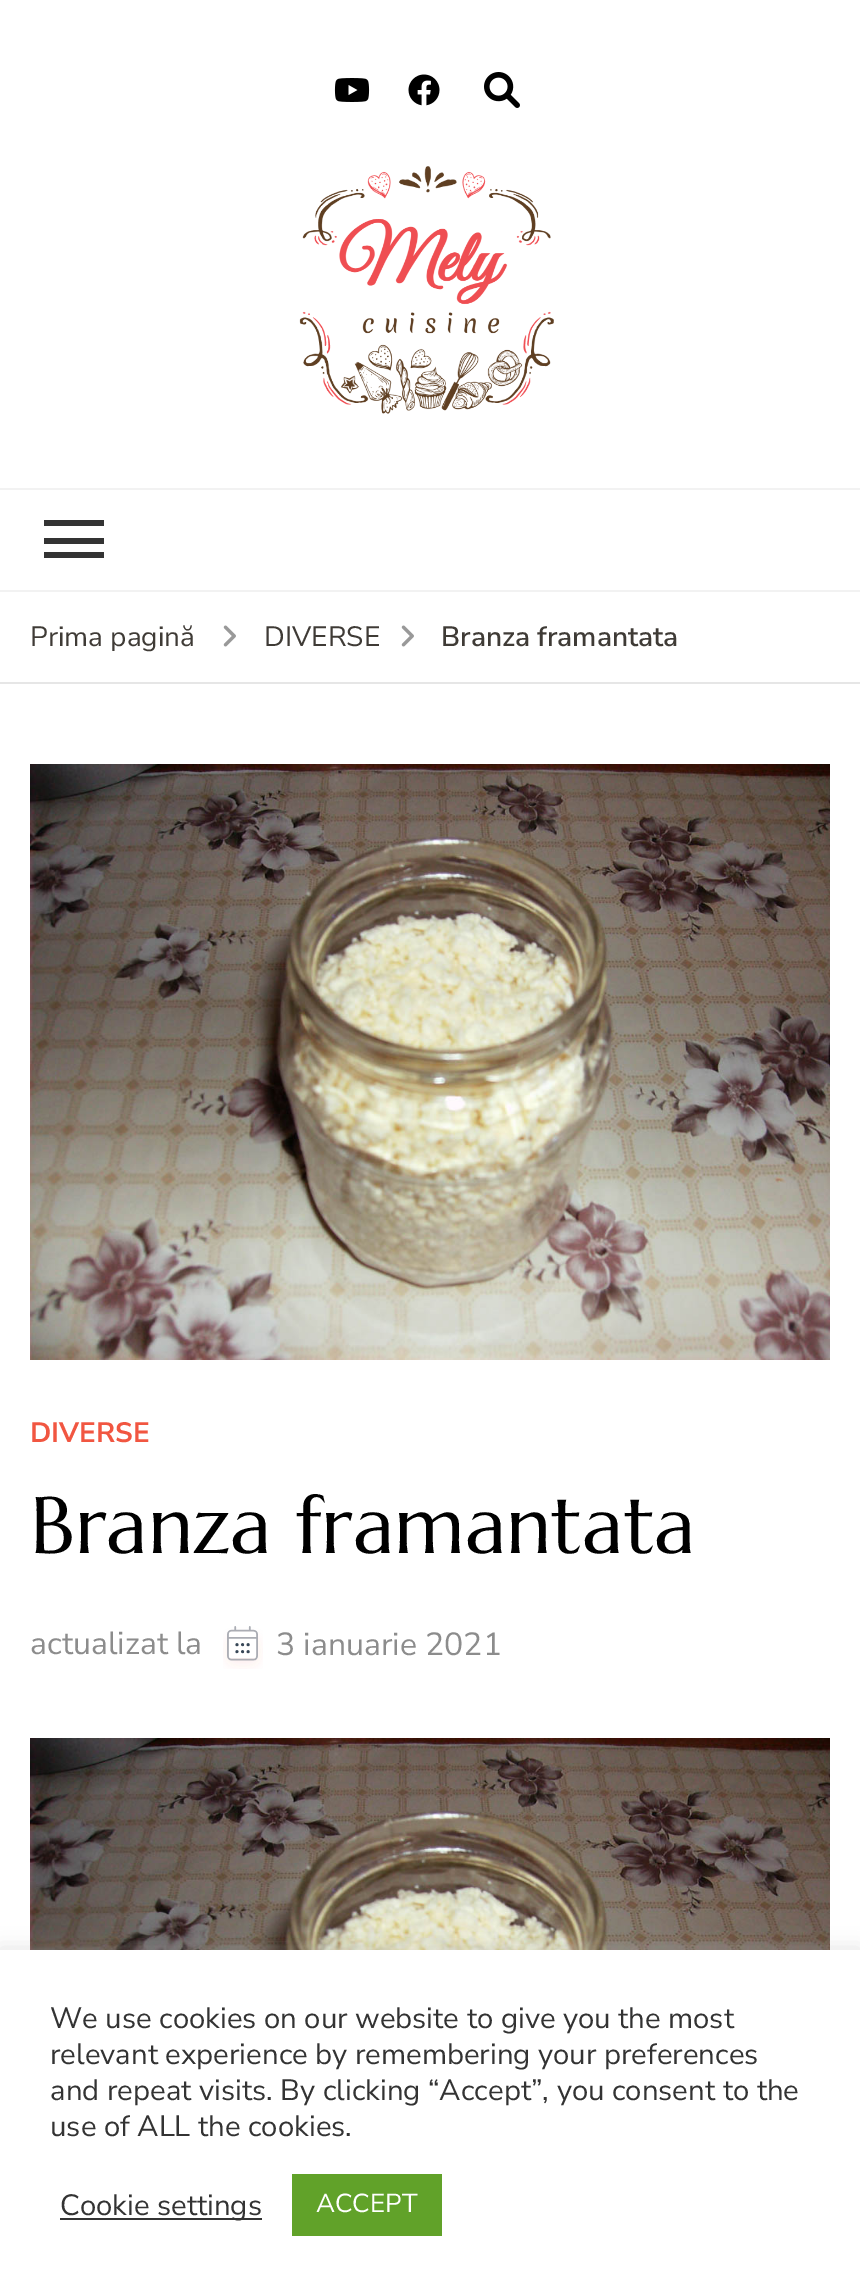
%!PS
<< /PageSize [860 2295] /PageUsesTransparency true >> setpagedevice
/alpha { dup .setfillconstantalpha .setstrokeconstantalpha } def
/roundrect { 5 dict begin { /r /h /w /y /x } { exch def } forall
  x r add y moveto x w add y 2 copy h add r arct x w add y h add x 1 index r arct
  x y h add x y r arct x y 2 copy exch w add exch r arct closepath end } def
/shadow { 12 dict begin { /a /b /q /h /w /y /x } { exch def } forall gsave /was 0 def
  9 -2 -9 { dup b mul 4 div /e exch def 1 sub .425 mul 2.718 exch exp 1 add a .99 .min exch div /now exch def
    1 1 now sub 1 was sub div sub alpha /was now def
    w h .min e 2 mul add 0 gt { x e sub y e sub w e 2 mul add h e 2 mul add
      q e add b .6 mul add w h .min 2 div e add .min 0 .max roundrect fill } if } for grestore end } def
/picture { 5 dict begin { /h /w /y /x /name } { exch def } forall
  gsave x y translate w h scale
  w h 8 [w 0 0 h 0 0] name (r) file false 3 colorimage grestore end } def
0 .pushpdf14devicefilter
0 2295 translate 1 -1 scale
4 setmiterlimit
1 setgray
0 0 860 2295 rectfill
0.949 setgray
0 590 860 2 rectfill
(img1.rgb) 334 78 36 24 picture
(img2.rgb) 408 74 32 32 picture
(img3.rgb) 484 72 36 36 picture
(img4.rgb) 299 166 255 248 picture
0 488 860 2 rectfill
0.2 setgray
44 520 60 6 rectfill
44 538 60 6 rectfill
44 552 60 6 rectfill
0.902 setgray
0 682 860 2 rectfill
/NunitoSans-Regular [28 0 0 -28 0 0] selectfont
0.247 0.231 0.212 setrgbcolor
30 646 moveto (Prima pagină) show
(img5.rgb) 223 625 13 22 picture
264 646 moveto (DIVERSE) show
(img5.rgb) 401 625 13 22 picture
/NunitoSans-SemiBold [28 0 0 -28 0 0] selectfont
441 646 moveto (Branza framantata) show
(img6.rgb) 30 764 800 596 picture
/NunitoSans-Bold [28 0 0 -28 0 0] selectfont
0.945 0.337 0.255 setrgbcolor
30 1442 moveto (DIVERSE) show
/Marcellus-Regular [80 0 0 -80 0 0] selectfont
0 setgray
30 1553 moveto (Branza framantata) show
/NunitoSans-Regular [32 0 0 -32 0 0] selectfont
0.549 setgray
30 1654 moveto (actualizat la) show
(img7.rgb) 223 1626 40 43 picture
276 1655 moveto (3 ianuarie 2021) show
(img8.rgb) 30 1738 800 212 picture
0.675 0.671 0.671 setrgbcolor
0 1948 860 346 0 10 0.3 shadow
1 setgray
0 1950 860 345 rectfill
/NunitoSans-Regular [29.3 0 0 -29.3 0 0] selectfont
0.2 setgray
50 2028 moveto (We use cookies on our website to give you the most) show
50 2064 moveto (relevant experience by remembering your preferences) show
50 2100 moveto (and repeat visits. By clicking “Accept”, you consent to the) show
50 2136 moveto (use of ALL the cookies.) show
60 2218 202 2 rectfill
60 2215 moveto (Cookie settings) show
0.38 0.635 0.161 setrgbcolor
292 2174 150 62 rectfill
/NunitoSans-Regular [26 0 0 -26 0 0] selectfont
1 setgray
316 2212 moveto (ACCEPT) show
.poppdf14devicefilter showpage
